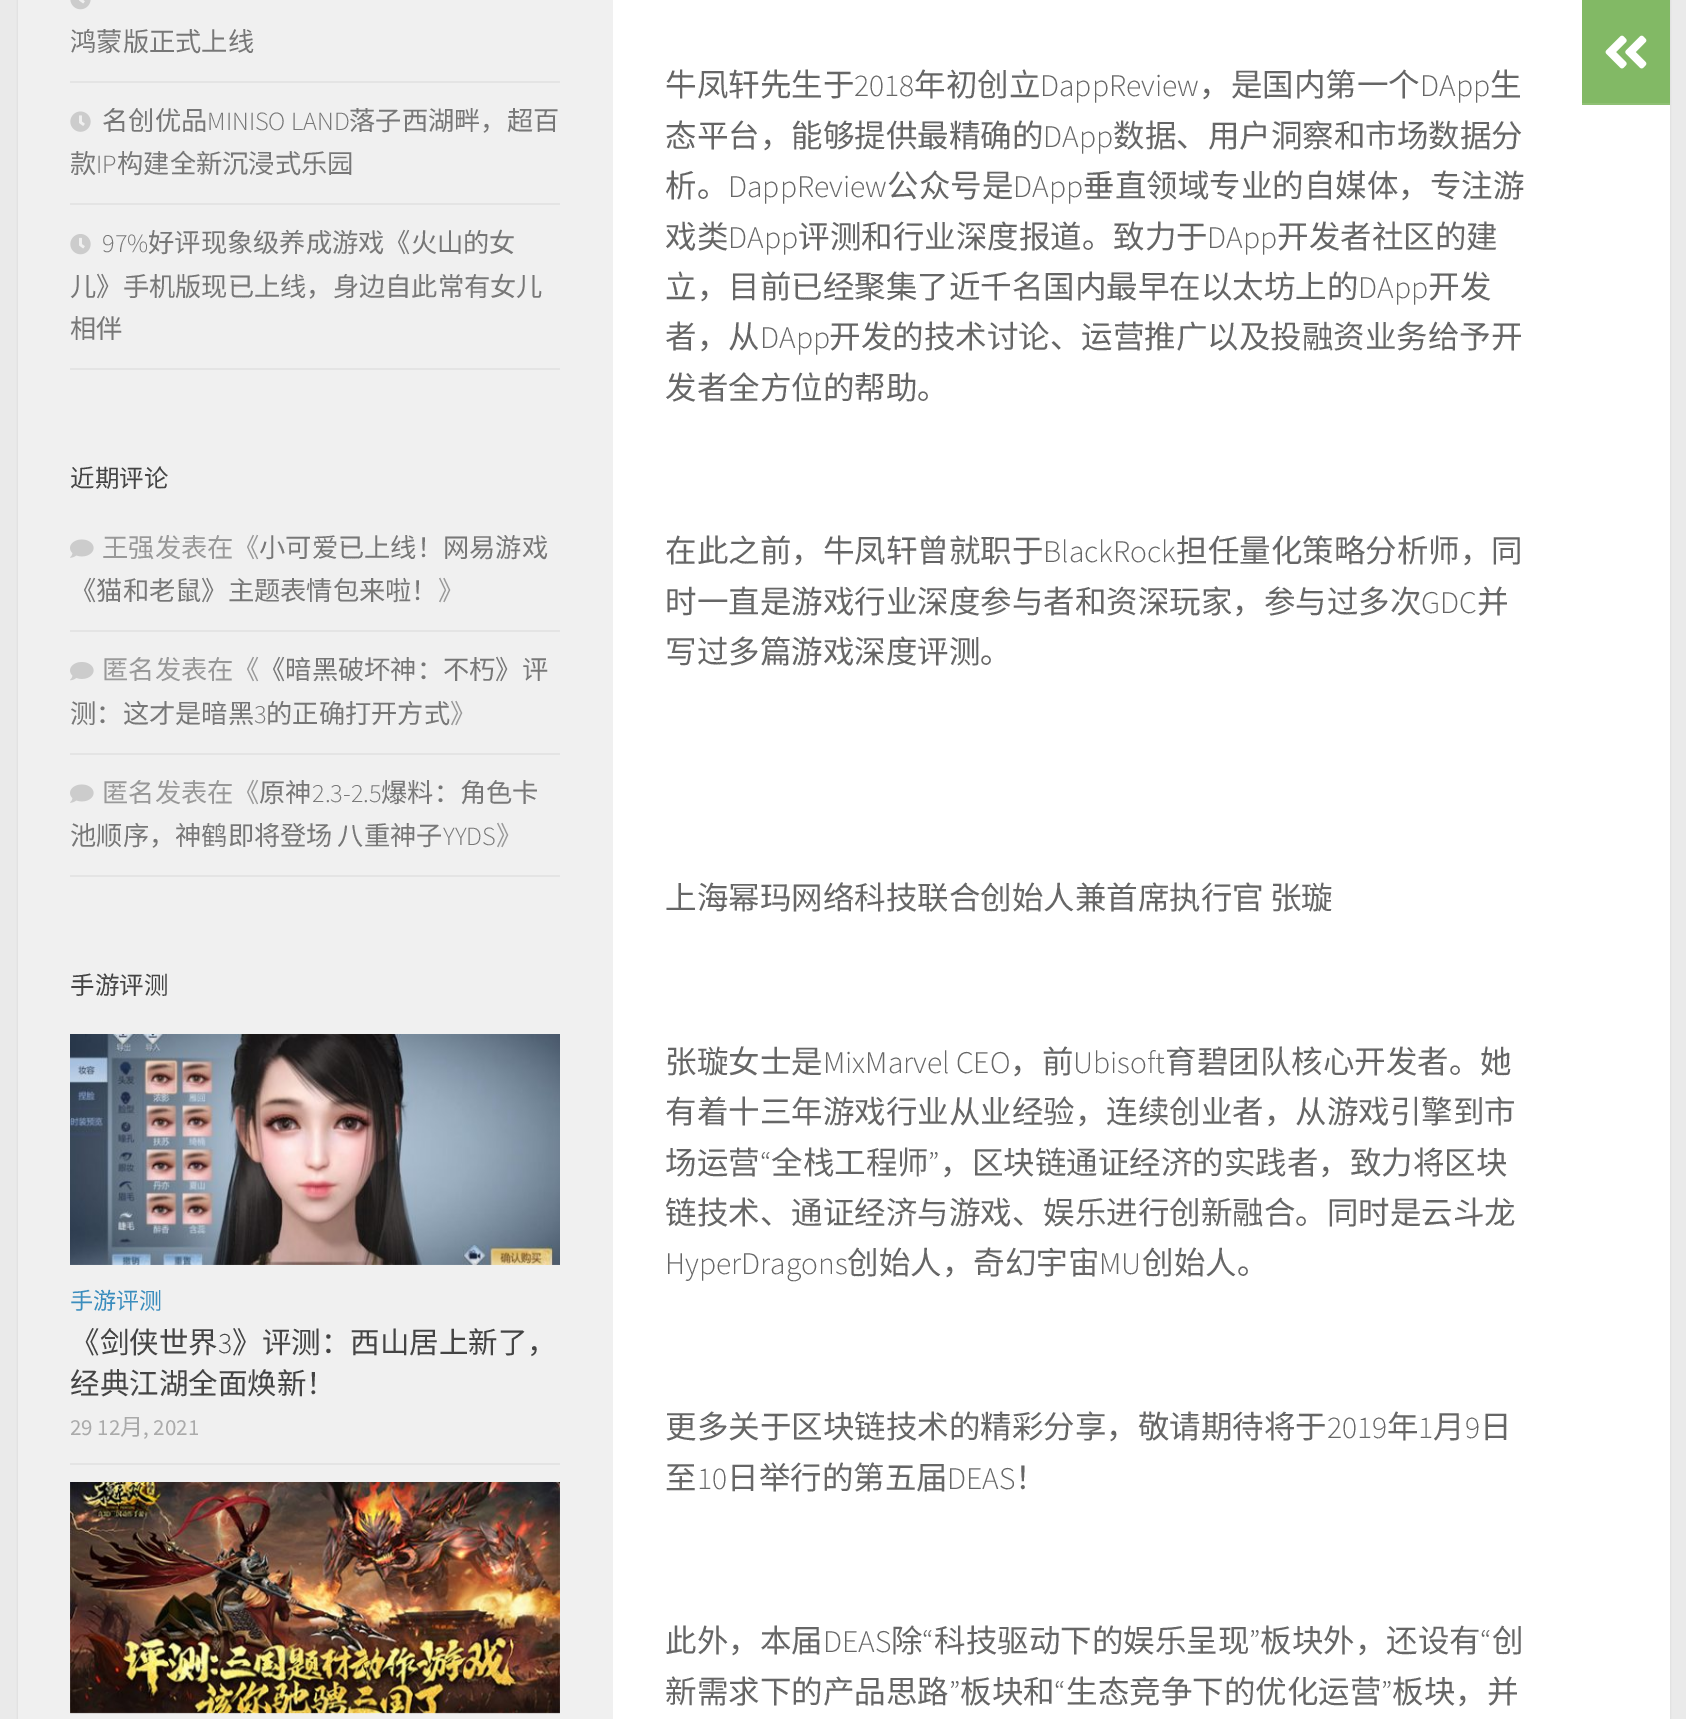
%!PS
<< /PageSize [1686 1719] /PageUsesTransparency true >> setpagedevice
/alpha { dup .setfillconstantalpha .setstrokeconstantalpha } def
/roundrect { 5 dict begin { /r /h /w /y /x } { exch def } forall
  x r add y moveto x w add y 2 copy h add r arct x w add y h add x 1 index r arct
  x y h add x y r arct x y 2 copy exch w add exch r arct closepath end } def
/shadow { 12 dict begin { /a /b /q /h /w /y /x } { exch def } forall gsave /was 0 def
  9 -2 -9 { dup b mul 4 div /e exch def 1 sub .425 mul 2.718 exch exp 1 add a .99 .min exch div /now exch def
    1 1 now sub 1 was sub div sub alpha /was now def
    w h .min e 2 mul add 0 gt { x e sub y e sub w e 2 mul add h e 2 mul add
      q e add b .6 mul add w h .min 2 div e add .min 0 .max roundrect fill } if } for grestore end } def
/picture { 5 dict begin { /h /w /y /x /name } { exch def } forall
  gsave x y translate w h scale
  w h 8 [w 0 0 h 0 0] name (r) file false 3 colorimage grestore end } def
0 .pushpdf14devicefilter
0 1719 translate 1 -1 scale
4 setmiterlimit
0.918 setgray
0 0 1686 1719 rectfill
0 setgray
18 -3 1652 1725 0 1 0.1 shadow
1 setgray
613 0 1057 1719 rectfill
0.941 setgray
18 0 595 1719 rectfill
0.894 setgray
70 81 490 2 rectfill
(img1.rgb) 70 0 21 10 picture
/NotoSansCJKSC-Regular [26.25 0 0 -26.25 0 0] selectfont
0.467 setgray
70 51 moveto (鸿蒙版正式上线) show
0.894 setgray
70 203 490 2 rectfill
(img2.rgb) 70 111 21 21 picture
0.467 setgray
102 130 moveto (名创优品) show
/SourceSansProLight-Light [26.25 0 0 -26.25 0 0] selectfont
207 130 moveto (MINISO LAND) show
/NotoSansCJKSC-Regular [26.25 0 0 -26.25 0 0] selectfont
349 130 moveto (落子西湖畔，超百) show
70 173 moveto (款) show
/SourceSansProLight-Light [26.25 0 0 -26.25 0 0] selectfont
96 173 moveto (IP) show
/NotoSansCJKSC-Regular [26.25 0 0 -26.25 0 0] selectfont
117 173 moveto (构建全新沉浸式乐园) show
0.894 setgray
70 368 490 2 rectfill
(img3.rgb) 70 234 21 21 picture
/SourceSansProLight-Light [26.25 0 0 -26.25 0 0] selectfont
0.467 setgray
102 252 moveto (97%) show
/NotoSansCJKSC-Regular [26.25 0 0 -26.25 0 0] selectfont
148 252 moveto (好评现象级养成游戏《火山的女) show
70 296 moveto (儿》手机版现已上线，身边自此常有女儿) show
70 338 moveto (相伴) show
/NotoSansCJKSC-Regular [24.5 0 0 -24.5 0 0] selectfont
0.267 setgray
70 487 moveto (近期评论) show
0.894 setgray
70 630 490 2 rectfill
(img4.rgb) 70 539 24 19 picture
/NotoSansCJKSC-Regular [26.25 0 0 -26.25 0 0] selectfont
0.6 setgray
102 557 moveto (王强发表在《) show
0.467 setgray
259 557 moveto (小可爱已上线！网易游戏) show
70 600 moveto (《猫和老鼠》主题表情包来啦！) show
0.6 setgray
438 600 moveto (》) show
0.894 setgray
70 753 490 2 rectfill
(img5.rgb) 70 662 24 19 picture
0.6 setgray
102 679 moveto (匿名发表在《) show
0.467 setgray
259 679 moveto (《暗黑破坏神：不朽》评) show
70 723 moveto (测：这才是暗黑) show
/SourceSansProLight-Light [26.25 0 0 -26.25 0 0] selectfont
254 723 moveto (3) show
/NotoSansCJKSC-Regular [26.25 0 0 -26.25 0 0] selectfont
266 723 moveto (的正确打开方式) show
0.6 setgray
450 723 moveto (》) show
0.894 setgray
70 875 490 2 rectfill
(img4.rgb) 70 784 24 19 picture
0.6 setgray
102 802 moveto (匿名发表在《) show
0.467 setgray
259 802 moveto (原神) show
/SourceSansProLight-Light [26.25 0 0 -26.25 0 0] selectfont
312 802 moveto (2.3-2.5) show
/NotoSansCJKSC-Regular [26.25 0 0 -26.25 0 0] selectfont
381 802 moveto (爆料：角色卡) show
70 845 moveto -1 0 32 (池顺序，神鹤即将登场 八重神子) widthshow
/SourceSansProLight-Light [26.25 0 0 -26.25 0 0] selectfont
443 845 moveto (YYDS) show
/NotoSansCJKSC-Regular [26.25 0 0 -26.25 0 0] selectfont
0.6 setgray
496 845 moveto (》) show
/NotoSansCJKSC-Regular [24.5 0 0 -24.5 0 0] selectfont
0.267 setgray
70 994 moveto (手游评测) show
0.894 setgray
70 1463 490 2 rectfill
(img6.rgb) 70 1034 490 231 picture
/NotoSansCJKSC-Regular [23 0 0 -23 0 0] selectfont
0.231 0.553 0.741 setrgbcolor
70 1309 moveto (手游评测) show
/NotoSansCJKSC-Regular [29.5 0 0 -29.5 0 0] selectfont
0.267 setgray
70 1353 moveto (《剑侠世界) show
/SourceSansProLight-Light [29.5 0 0 -29.5 0 0] selectfont
218 1353 moveto (3) show
/NotoSansCJKSC-Regular [29.5 0 0 -29.5 0 0] selectfont
232 1353 moveto (》评测：西山居上新了，) show
70 1394 moveto (经典江湖全面焕新！) show
/SourceSansPro-Regular [23 0 0 -23 0 0] selectfont
0.667 setgray
70 1435 moveto (29 12) show
/NotoSansCJKSC-Regular [23 0 0 -23 0 0] selectfont
120 1435 moveto (月) show
/SourceSansPro-Regular [23 0 0 -23 0 0] selectfont
143 1435 moveto (, 2021) show
(img7.rgb) 70 1482 490 232 picture
/NotoSansCJKSC-Regular [31.5 0 0 -31.5 0 0] selectfont
0.4 setgray
665 96 moveto (牛凤轩先生于) show
/SourceSansProLight-Light [31.5 0 0 -31.5 0 0] selectfont
854 96 moveto (2018) show
/NotoSansCJKSC-Regular [31.5 0 0 -31.5 0 0] selectfont
914 96 moveto (年初创立) show
/SourceSansProLight-Light [31.5 0 0 -31.5 0 0] selectfont
1040 96 moveto (DappReview) show
/NotoSansCJKSC-Regular [31.5 0 0 -31.5 0 0] selectfont
1199 96 moveto (，是国内第一个) show
/SourceSansProLight-Light [31.5 0 0 -31.5 0 0] selectfont
1420 96 moveto (DApp) show
/NotoSansCJKSC-Regular [31.5 0 0 -31.5 0 0] selectfont
1490 96 moveto (生) show
665 147 moveto (态平台，能够提供最精确的) show
/SourceSansProLight-Light [31.5 0 0 -31.5 0 0] selectfont
1043 147 moveto (DApp) show
/NotoSansCJKSC-Regular [31.5 0 0 -31.5 0 0] selectfont
1113 147 moveto (数据、用户洞察和市场数据分) show
665 197 moveto (析。) show
/SourceSansProLight-Light [31.5 0 0 -31.5 0 0] selectfont
728 197 moveto (DappReview) show
/NotoSansCJKSC-Regular [31.5 0 0 -31.5 0 0] selectfont
887 197 moveto (公众号是) show
/SourceSansProLight-Light [31.5 0 0 -31.5 0 0] selectfont
1013 197 moveto (DApp) show
/NotoSansCJKSC-Regular [31.5 0 0 -31.5 0 0] selectfont
1083 197 moveto (垂直领域专业的自媒体，专注游) show
665 248 moveto (戏类) show
/SourceSansProLight-Light [31.5 0 0 -31.5 0 0] selectfont
728 248 moveto (DApp) show
/NotoSansCJKSC-Regular [31.5 0 0 -31.5 0 0] selectfont
798 248 moveto (评测和行业深度报道。致力于) show
/SourceSansProLight-Light [31.5 0 0 -31.5 0 0] selectfont
1207 248 moveto (DApp) show
/NotoSansCJKSC-Regular [31.5 0 0 -31.5 0 0] selectfont
1277 248 moveto (开发者社区的建) show
665 298 moveto (立，目前已经聚集了近千名国内最早在以太坊上的) show
/SourceSansProLight-Light [31.5 0 0 -31.5 0 0] selectfont
1358 298 moveto (DApp) show
/NotoSansCJKSC-Regular [31.5 0 0 -31.5 0 0] selectfont
1428 298 moveto (开发) show
665 348 moveto (者，从) show
/SourceSansProLight-Light [31.5 0 0 -31.5 0 0] selectfont
760 348 moveto (DApp) show
/NotoSansCJKSC-Regular [31.5 0 0 -31.5 0 0] selectfont
829 348 moveto (开发的技术讨论、运营推广以及投融资业务给予开) show
665 399 moveto (发者全方位的帮助。) show
665 562 moveto (在此之前，牛凤轩曾就职于) show
/SourceSansProLight-Light [31.5 0 0 -31.5 0 0] selectfont
1043 562 moveto (BlackRock) show
/NotoSansCJKSC-Regular [31.5 0 0 -31.5 0 0] selectfont
1176 562 moveto (担任量化策略分析师，同) show
665 613 moveto (时一直是游戏行业深度参与者和资深玩家，参与过多次) show
/SourceSansProLight-Light [31.5 0 0 -31.5 0 0] selectfont
1421 613 moveto (GDC) show
/NotoSansCJKSC-Regular [31.5 0 0 -31.5 0 0] selectfont
1477 613 moveto (并) show
665 663 moveto (写过多篇游戏深度评测。) show
665 909 moveto -1 0 32 (上海幂玛网络科技联合创始人兼首席执行官 张璇) widthshow
665 1073 moveto (张璇女士是) show
/SourceSansProLight-Light [31.5 0 0 -31.5 0 0] selectfont
823 1073 moveto (MixMarvel CEO) show
/NotoSansCJKSC-Regular [31.5 0 0 -31.5 0 0] selectfont
1010 1073 moveto (，前) show
/SourceSansProLight-Light [31.5 0 0 -31.5 0 0] selectfont
1073 1073 moveto (Ubisoft) show
/NotoSansCJKSC-Regular [31.5 0 0 -31.5 0 0] selectfont
1165 1073 moveto (育碧团队核心开发者。她) show
665 1123 moveto (有着十三年游戏行业从业经验，连续创业者，从游戏引擎到市) show
665 1174 moveto (场运营) show
/SourceSansProLight-Light [31.5 0 0 -31.5 0 0] selectfont
760 1174 moveto (“) show
/NotoSansCJKSC-Regular [31.5 0 0 -31.5 0 0] selectfont
771 1174 moveto (全栈工程师) show
/SourceSansProLight-Light [31.5 0 0 -31.5 0 0] selectfont
928 1174 moveto (”) show
/NotoSansCJKSC-Regular [31.5 0 0 -31.5 0 0] selectfont
940 1174 moveto (，区块链通证经济的实践者，致力将区块) show
665 1224 moveto (链技术、通证经济与游戏、娱乐进行创新融合。同时是云斗龙) show
/SourceSansProLight-Light [31.5 0 0 -31.5 0 0] selectfont
665 1274 moveto (HyperDragons) show
/NotoSansCJKSC-Regular [31.5 0 0 -31.5 0 0] selectfont
847 1274 moveto (创始人，奇幻宇宙) show
/SourceSansProLight-Light [31.5 0 0 -31.5 0 0] selectfont
1099 1274 moveto (MU) show
/NotoSansCJKSC-Regular [31.5 0 0 -31.5 0 0] selectfont
1142 1274 moveto (创始人。) show
665 1438 moveto (更多关于区块链技术的精彩分享，敬请期待将于) show
/SourceSansProLight-Light [31.5 0 0 -31.5 0 0] selectfont
1327 1438 moveto (2019) show
/NotoSansCJKSC-Regular [31.5 0 0 -31.5 0 0] selectfont
1387 1438 moveto (年) show
/SourceSansProLight-Light [31.5 0 0 -31.5 0 0] selectfont
1418 1438 moveto (1) show
/NotoSansCJKSC-Regular [31.5 0 0 -31.5 0 0] selectfont
1433 1438 moveto (月) show
/SourceSansProLight-Light [31.5 0 0 -31.5 0 0] selectfont
1465 1438 moveto (9) show
/NotoSansCJKSC-Regular [31.5 0 0 -31.5 0 0] selectfont
1480 1438 moveto (日) show
665 1489 moveto (至) show
/SourceSansProLight-Light [31.5 0 0 -31.5 0 0] selectfont
697 1489 moveto (10) show
/NotoSansCJKSC-Regular [31.5 0 0 -31.5 0 0] selectfont
727 1489 moveto (日举行的第五届) show
/SourceSansProLight-Light [31.5 0 0 -31.5 0 0] selectfont
947 1489 moveto (DEAS) show
/NotoSansCJKSC-Regular [31.5 0 0 -31.5 0 0] selectfont
1015 1489 moveto (！) show
665 1652 moveto (此外，本届) show
/SourceSansProLight-Light [31.5 0 0 -31.5 0 0] selectfont
823 1652 moveto (DEAS) show
/NotoSansCJKSC-Regular [31.5 0 0 -31.5 0 0] selectfont
891 1652 moveto (除) show
/SourceSansProLight-Light [31.5 0 0 -31.5 0 0] selectfont
922 1652 moveto (“) show
/NotoSansCJKSC-Regular [31.5 0 0 -31.5 0 0] selectfont
934 1652 moveto (科技驱动下的娱乐呈现) show
/SourceSansProLight-Light [31.5 0 0 -31.5 0 0] selectfont
1249 1652 moveto (”) show
/NotoSansCJKSC-Regular [31.5 0 0 -31.5 0 0] selectfont
1260 1652 moveto (板块外，还设有) show
/SourceSansProLight-Light [31.5 0 0 -31.5 0 0] selectfont
1480 1652 moveto (“) show
/NotoSansCJKSC-Regular [31.5 0 0 -31.5 0 0] selectfont
1492 1652 moveto (创) show
665 1703 moveto (新需求下的产品思路) show
/SourceSansProLight-Light [31.5 0 0 -31.5 0 0] selectfont
949 1703 moveto (”) show
/NotoSansCJKSC-Regular [31.5 0 0 -31.5 0 0] selectfont
960 1703 moveto (板块和) show
/SourceSansProLight-Light [31.5 0 0 -31.5 0 0] selectfont
1054 1703 moveto (“) show
/NotoSansCJKSC-Regular [31.5 0 0 -31.5 0 0] selectfont
1066 1703 moveto (生态竞争下的优化运营) show
/SourceSansProLight-Light [31.5 0 0 -31.5 0 0] selectfont
1381 1703 moveto (”) show
/NotoSansCJKSC-Regular [31.5 0 0 -31.5 0 0] selectfont
1392 1703 moveto (板块，并) show
0.51 0.725 0.396 setrgbcolor
1582 0 88 103 rectfill
0.561 0.753 0.455 setrgbcolor
1582 103 88 2 rectfill
(img8.rgb) 1605 35 42 34 picture
.poppdf14devicefilter showpage
